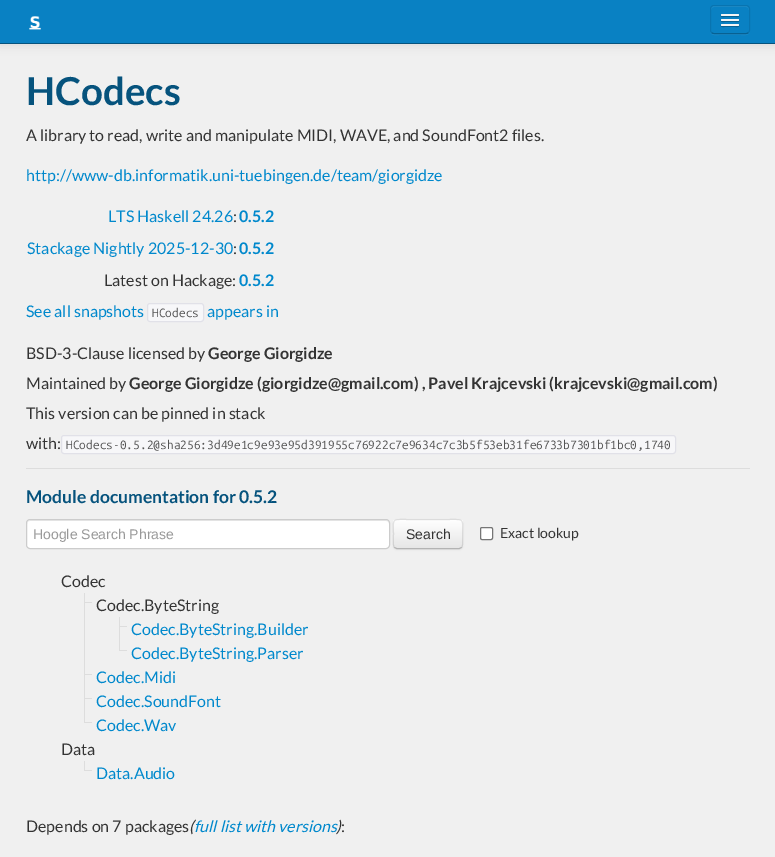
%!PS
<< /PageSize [775 857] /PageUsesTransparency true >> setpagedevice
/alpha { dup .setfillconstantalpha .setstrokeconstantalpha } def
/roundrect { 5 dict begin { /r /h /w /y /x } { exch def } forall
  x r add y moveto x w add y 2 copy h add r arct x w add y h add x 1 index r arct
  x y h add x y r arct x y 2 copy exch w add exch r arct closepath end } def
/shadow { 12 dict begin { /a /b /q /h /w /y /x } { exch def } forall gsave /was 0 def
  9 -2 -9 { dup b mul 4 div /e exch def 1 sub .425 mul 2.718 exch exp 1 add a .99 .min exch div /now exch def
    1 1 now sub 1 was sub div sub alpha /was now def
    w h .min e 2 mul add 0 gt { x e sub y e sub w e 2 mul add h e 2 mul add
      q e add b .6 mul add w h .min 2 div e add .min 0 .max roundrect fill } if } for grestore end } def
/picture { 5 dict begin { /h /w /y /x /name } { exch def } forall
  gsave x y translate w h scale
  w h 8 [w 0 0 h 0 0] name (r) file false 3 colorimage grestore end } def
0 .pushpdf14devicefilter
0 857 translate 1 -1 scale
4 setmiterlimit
0.941 setgray
0 0 775 857 rectfill
0 setgray
0 1 775 44 0 5 0.1 shadow
0.035 0.506 0.765 setrgbcolor
0 0 775 43 rectfill
0.024 0.325 0.49 setrgbcolor
0 43 775 1 rectfill
(img1.rgb) 29 16 12 14 picture
0.106 0.541 0.784 setrgbcolor
newpath 710 30 moveto 710 36 715 35 719 35 curveto 741 35 lineto 745 35 750 36 750 30 curveto 750 32 748 34 746 34 curveto 714 34 lineto 712 34 710 32 710 30 curveto closepath fill
0.035 0.506 0.765 setrgbcolor
710 5 40 29 4 roundrect fill
0.133 0.557 0.788 setrgbcolor
newpath 714 7 moveto 746 7 lineto 748 7 749 8 749 10 curveto 749 5 745 6 740.5 6 curveto 719.5 6 lineto 715 6 711 5 711 10 curveto 711 8 712 7 714 7 curveto closepath fill
0.027 0.38 0.573 setrgbcolor
newpath 748.5 32.5 moveto 748 33 747 33.5 746 33.5 curveto 714 33.5 lineto 713 33.5 712 33 711.5 32.5 curveto stroke
0.031 0.455 0.69 setrgbcolor
newpath 711.5 32.5 moveto 711 32 710.5 31 710.5 30 curveto 710.5 9 lineto 710.5 8 711 7 711.5 6.5 curveto 712 6 713 5.5 714 5.5 curveto 746 5.5 lineto 747 5.5 748 6 748.5 6.5 curveto 749 7 749.5 8 749.5 9 curveto 749.5 30 lineto 749.5 31 749 32 748.5 32.5 curveto stroke
0.027 0.38 0.573 setrgbcolor
newpath 721 15.5 moveto 720 17.5 724.5 17 724.5 17 curveto 735.5 17 lineto 735.5 17 740 17.5 739 15.5 curveto 738 16.5 731.5 16 730 16 curveto 728.5 16 722 16.5 721 15.5 curveto closepath fill
0.961 setgray
721 14 18 2 1 roundrect fill
0.027 0.38 0.573 setrgbcolor
newpath 721 20.5 moveto 720 22.5 724.5 22 724.5 22 curveto 735.5 22 lineto 735.5 22 740 22.5 739 20.5 curveto 738 21.5 731.5 21 730 21 curveto 728.5 21 722 21.5 721 20.5 curveto closepath fill
0.961 setgray
721 19 18 2 1 roundrect fill
0.027 0.38 0.573 setrgbcolor
newpath 721 25.5 moveto 720 27.5 724.5 27 724.5 27 curveto 735.5 27 lineto 735.5 27 740 27.5 739 25.5 curveto 738 26.5 731.5 26 730 26 curveto 728.5 26 722 26.5 721 25.5 curveto closepath fill
0.961 setgray
721 24 18 2 1 roundrect fill
/Lato-Bold [38.5 0 0 -38.5 0 0] selectfont
0.024 0.325 0.49 setrgbcolor
26 105 moveto (HCodecs) show
/Lato-Regular [16 0 0 -16 0 0] selectfont
0.2 setgray
26 141 moveto (A library to read, write and manipulate MIDI, WAVE, and SoundFont2 files.) show
0 0.533 0.8 setrgbcolor
26 181 moveto (http://www-db.informatik.uni-tuebingen.de/team/giorgidze) show
108 222 moveto (LTS Haskell 24.26) show
0.2 setgray
233 222 moveto (:) show
/Lato-Bold [16 0 0 -16 0 0] selectfont
0 0.533 0.8 setrgbcolor
239 222 moveto (0.5.2) show
/Lato-Regular [16 0 0 -16 0 0] selectfont
27 254 moveto (Stackage Nightly 2025-12-30) show
0.2 setgray
233 254 moveto (:) show
/Lato-Bold [16 0 0 -16 0 0] selectfont
0 0.533 0.8 setrgbcolor
239 254 moveto (0.5.2) show
/Lato-Regular [16 0 0 -16 0 0] selectfont
0.2 setgray
104 286 moveto (Latest on Hackage:) show
/Lato-Bold [16 0 0 -16 0 0] selectfont
0 0.533 0.8 setrgbcolor
239 286 moveto (0.5.2) show
/Lato-Regular [16 0 0 -16 0 0] selectfont
26 317 moveto (See all snapshots) show
0.969 0.969 0.976 setrgbcolor
147.5 303.5 56 18 2.5 roundrect gsave fill grestore
0.882 0.882 0.91 setrgbcolor
stroke
/UbuntuMono-Regular [12 0 0 -12 0 0] selectfont
0.333 setgray
152 317 moveto (HCodecs) show
/Lato-Regular [16 0 0 -16 0 0] selectfont
0 0.533 0.8 setrgbcolor
207 317 moveto (appears in) show
0.2 setgray
26 359 moveto (BSD-3-Clause licensed by) show
/Lato-Bold [16 0 0 -16 0 0] selectfont
208 359 moveto (George Giorgidze) show
/Lato-Regular [16 0 0 -16 0 0] selectfont
26 389 moveto (Maintained by) show
/Lato-Bold [16 0 0 -16 0 0] selectfont
129 389 moveto (George Giorgidze \(giorgidze@gmail.com\) , Pavel Krajcevski \(krajcevski@gmail.com\)) show
/Lato-Regular [16 0 0 -16 0 0] selectfont
26 419 moveto (This version can be pinned in stack) show
26 449 moveto (with:) show
0.969 0.969 0.976 setrgbcolor
61.5 435.5 614 18 2.5 roundrect gsave fill grestore
0.882 0.882 0.91 setrgbcolor
stroke
/UbuntuMono-Regular [12 0 0 -12 0 0] selectfont
0.333 setgray
66 449 moveto (HCodecs-0.5.2@sha256:3d49e1c9e93e95d391955c76922c7e9634c7c3b5f53eb31fe6733b7301bf1bc0,1740) show
0.867 setgray
26 468 724 1 rectfill
/Lato-Bold [17.5 0 0 -17.5 0 0] selectfont
0.024 0.325 0.49 setrgbcolor
26 503 moveto (Module documentation for 0.5.2) show
1 setgray
26 519 364 30 4 roundrect fill
0.925 setgray
newpath 30 521 moveto 386 521 lineto 388 521 389 522 389 524 curveto 389 522 388 520 386 520 curveto 30 520 lineto 28 521 lineto 27 524 lineto 27 522 28 521 30 521 curveto closepath fill
0.8 setgray
26.5 519.5 363 29 3.5 roundrect stroke
/LiberationSans-Regular [14 0 0 -14 0 0] selectfont
0.6 setgray
33 539 moveto (Hoogle Search Phrase) show
0 setgray
393 520 70 30 4 1 0.05 shadow
0.961 setgray
393 519 70 30 4 roundrect fill
gsave
393 519 70 30 4 roundrect clip newpath
gsave newpath 393 520 moveto 463 520 lineto 463 548 lineto 393 548 lineto closepath clip newpath
<< /ShadingType 2 /ColorSpace /DeviceRGB /Coords [428 520 428 548] /Extend [true true] /Function << /FunctionType 2 /Domain [0 1] /C0 [1 1 1] /C1 [0.902 0.902 0.902] /N 1 >> >> shfill grestore
grestore
0.702 setgray
newpath 461.5 547.5 moveto 459.5 548.5 lineto 396.5 548.5 lineto 394.5 547.5 lineto stroke
0.1 alpha
0 setgray
newpath 394.5 547.5 moveto 392.5 545.5 393.5 537 393.5 534 curveto 393.5 518 391 519.5 407.5 519.5 curveto 448.5 519.5 lineto 465 519.5 462.5 518 462.5 534 curveto 462.5 537 463.5 545.5 461.5 547.5 curveto stroke
1 alpha
0.2 setgray
406 539 moveto (Search) show
1 setgray
480.5 527.5 12 12 1.5 roundrect gsave fill grestore
0.463 setgray
stroke
/Lato-Regular [14 0 0 -14 0 0] selectfont
0.2 setgray
500 538 moveto (Exact lookup) show
/Lato-Regular [16 0 0 -16 0 0] selectfont
61 587 moveto (Codec) show
0.867 setgray
84 602 8 1 rectfill
84 593 1 72 rectfill
0.2 setgray
96 611 moveto (Codec.ByteString) show
0.867 setgray
119 626 8 1 rectfill
119 617 1 33 rectfill
0 0.533 0.8 setrgbcolor
131 635 moveto (Codec.ByteString.Builder) show
0.867 setgray
119 650 8 1 rectfill
0 0.533 0.8 setrgbcolor
131 659 moveto (Codec.ByteString.Parser) show
0.867 setgray
84 674 8 1 rectfill
84 665 1 24 rectfill
0 0.533 0.8 setrgbcolor
96 683 moveto (Codec.Midi) show
0.867 setgray
84 698 8 1 rectfill
84 689 1 33 rectfill
0 0.533 0.8 setrgbcolor
96 707 moveto (Codec.SoundFont) show
0.867 setgray
84 722 8 1 rectfill
0 0.533 0.8 setrgbcolor
96 731 moveto (Codec.Wav) show
0.2 setgray
61 755 moveto (Data) show
0.867 setgray
84 761 1 9 rectfill
84 770 8 1 rectfill
0 0.533 0.8 setrgbcolor
96 779 moveto (Data.Audio) show
0.2 setgray
26 832 moveto (Depends on 7 packages) show
/Lato-Italic [16 0 0 -16 0 0] selectfont
189 832 moveto (\() show
0 0.533 0.8 setrgbcolor
194 832 moveto (full list with versions) show
0.2 setgray
336 832 moveto (\)) show
/Lato-Regular [16 0 0 -16 0 0] selectfont
341 832 moveto (:) show
.poppdf14devicefilter showpage
